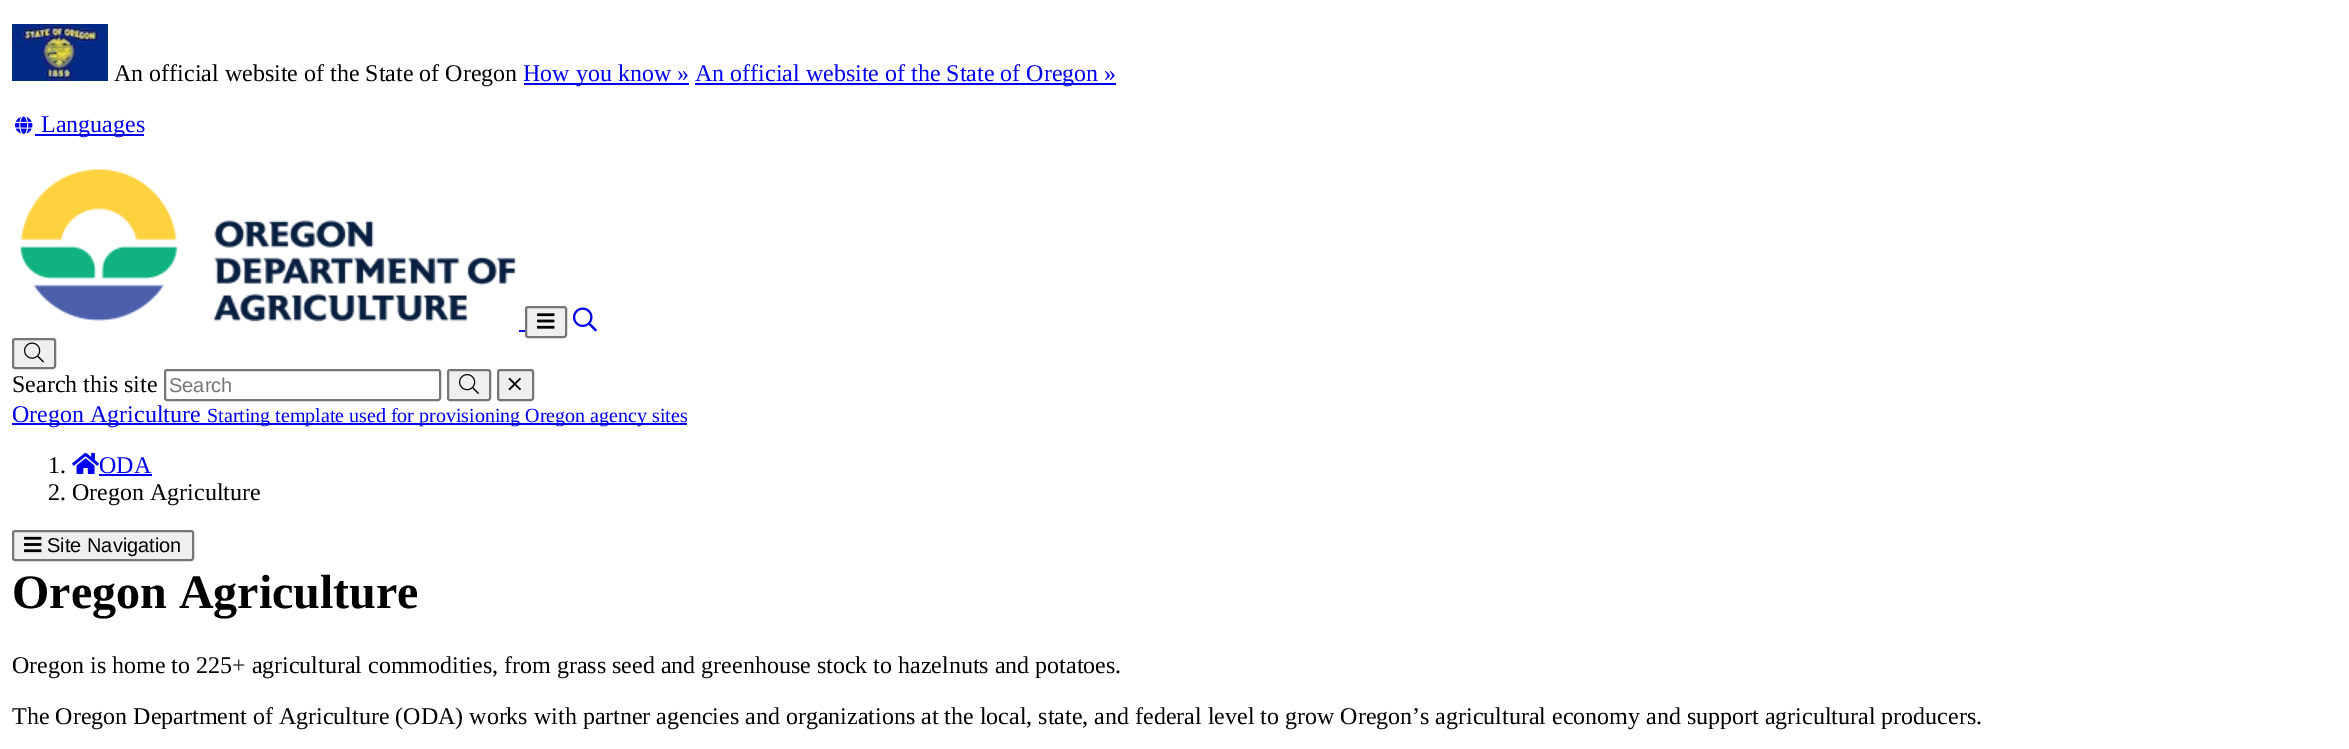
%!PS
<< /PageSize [2349 749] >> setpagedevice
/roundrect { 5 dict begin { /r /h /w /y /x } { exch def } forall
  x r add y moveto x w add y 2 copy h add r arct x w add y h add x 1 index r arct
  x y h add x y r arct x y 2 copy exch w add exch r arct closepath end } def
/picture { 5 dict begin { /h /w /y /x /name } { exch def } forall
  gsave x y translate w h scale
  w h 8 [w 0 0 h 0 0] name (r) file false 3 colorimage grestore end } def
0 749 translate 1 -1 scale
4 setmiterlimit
1 setgray
0 0 2349 749 rectfill
(img1.rgb) 12 24 96 57 picture
/LiberationSerif-Regular [24 0 0 -24 0 0] selectfont
0 setgray
114 81 moveto (An official website of the State of Oregon) show
0 0 0.933 setrgbcolor
524 83 165 2 rectfill
523 81 moveto (How you know ») show
695 83 421 2 rectfill
695 81 moveto (An official website of the State of Oregon ») show
(img2.rgb) 15 116 18 18 picture
35 134 109 2 rectfill
41 132 moveto (Languages) show
(img3.rgb) 19 168 498 154 picture
519 330 6 2 rectfill
0.937 setgray
526 307 40 30 2 roundrect gsave fill grestore
0.463 setgray
2 setlinewidth
stroke
(img4.rgb) 537 313 18 16 picture
(img5.rgb) 573 307 24 25 picture
0.937 setgray
13 339 42 29 2 roundrect gsave fill grestore
0.463 setgray
stroke
(img6.rgb) 24 342 20 21 picture
0 setgray
12 392 moveto (Search this site) show
0.463 setgray
165 370 275 30 2 roundrect stroke
/LiberationSans-Regular [20 0 0 -20 0 0] selectfont
0.459 setgray
169 392 moveto (Search) show
0.937 setgray
448 370 42 30 2 roundrect gsave fill grestore
0.463 setgray
stroke
(img7.rgb) 459 374 20 20 picture
0.937 setgray
498 370 35 30 2 roundrect gsave fill grestore
0.463 setgray
stroke
(img8.rgb) 508 377 13 14 picture
0 0 0.933 setrgbcolor
12 423 675 2 rectfill
/LiberationSerif-Regular [24 0 0 -24 0 0] selectfont
12 422 moveto (Oregon Agriculture) show
/LiberationSerif-Regular [20 0 0 -20 0 0] selectfont
207 422 moveto (Starting template used for provisioning Oregon agency sites) show
/LiberationSerif-Regular [24 0 0 -24 0 0] selectfont
0 setgray
48 473 moveto (1.) show
(img9.rgb) 72 453 27 21 picture
0 0 0.933 setrgbcolor
99 473 moveto (ODA) show
99 474 53 2 rectfill
0 setgray
48 500 moveto (2. Oregon Agriculture) show
0.937 setgray
13 531 180 29 2 roundrect gsave fill grestore
0.463 setgray
stroke
(img10.rgb) 24 536 18 17 picture
/LiberationSans-Regular [20 0 0 -20 0 0] selectfont
0 setgray
47 552 moveto (Site Navigation) show
/LiberationSerif-Bold [48 0 0 -48 0 0] selectfont
12 608 moveto (Oregon Agriculture) show
/LiberationSerif-Regular [24 0 0 -24 0 0] selectfont
12 673 moveto (Oregon is home to 225+ agricultural commodities, from grass seed and greenhouse stock to hazelnuts and potatoes.) show
12 724 moveto (The Oregon Department of Agriculture \(ODA\) works with partner agencies and organizations at the local, state, and federal level to grow Oregon’s agricultural economy and support agricultural producers.) show
showpage
